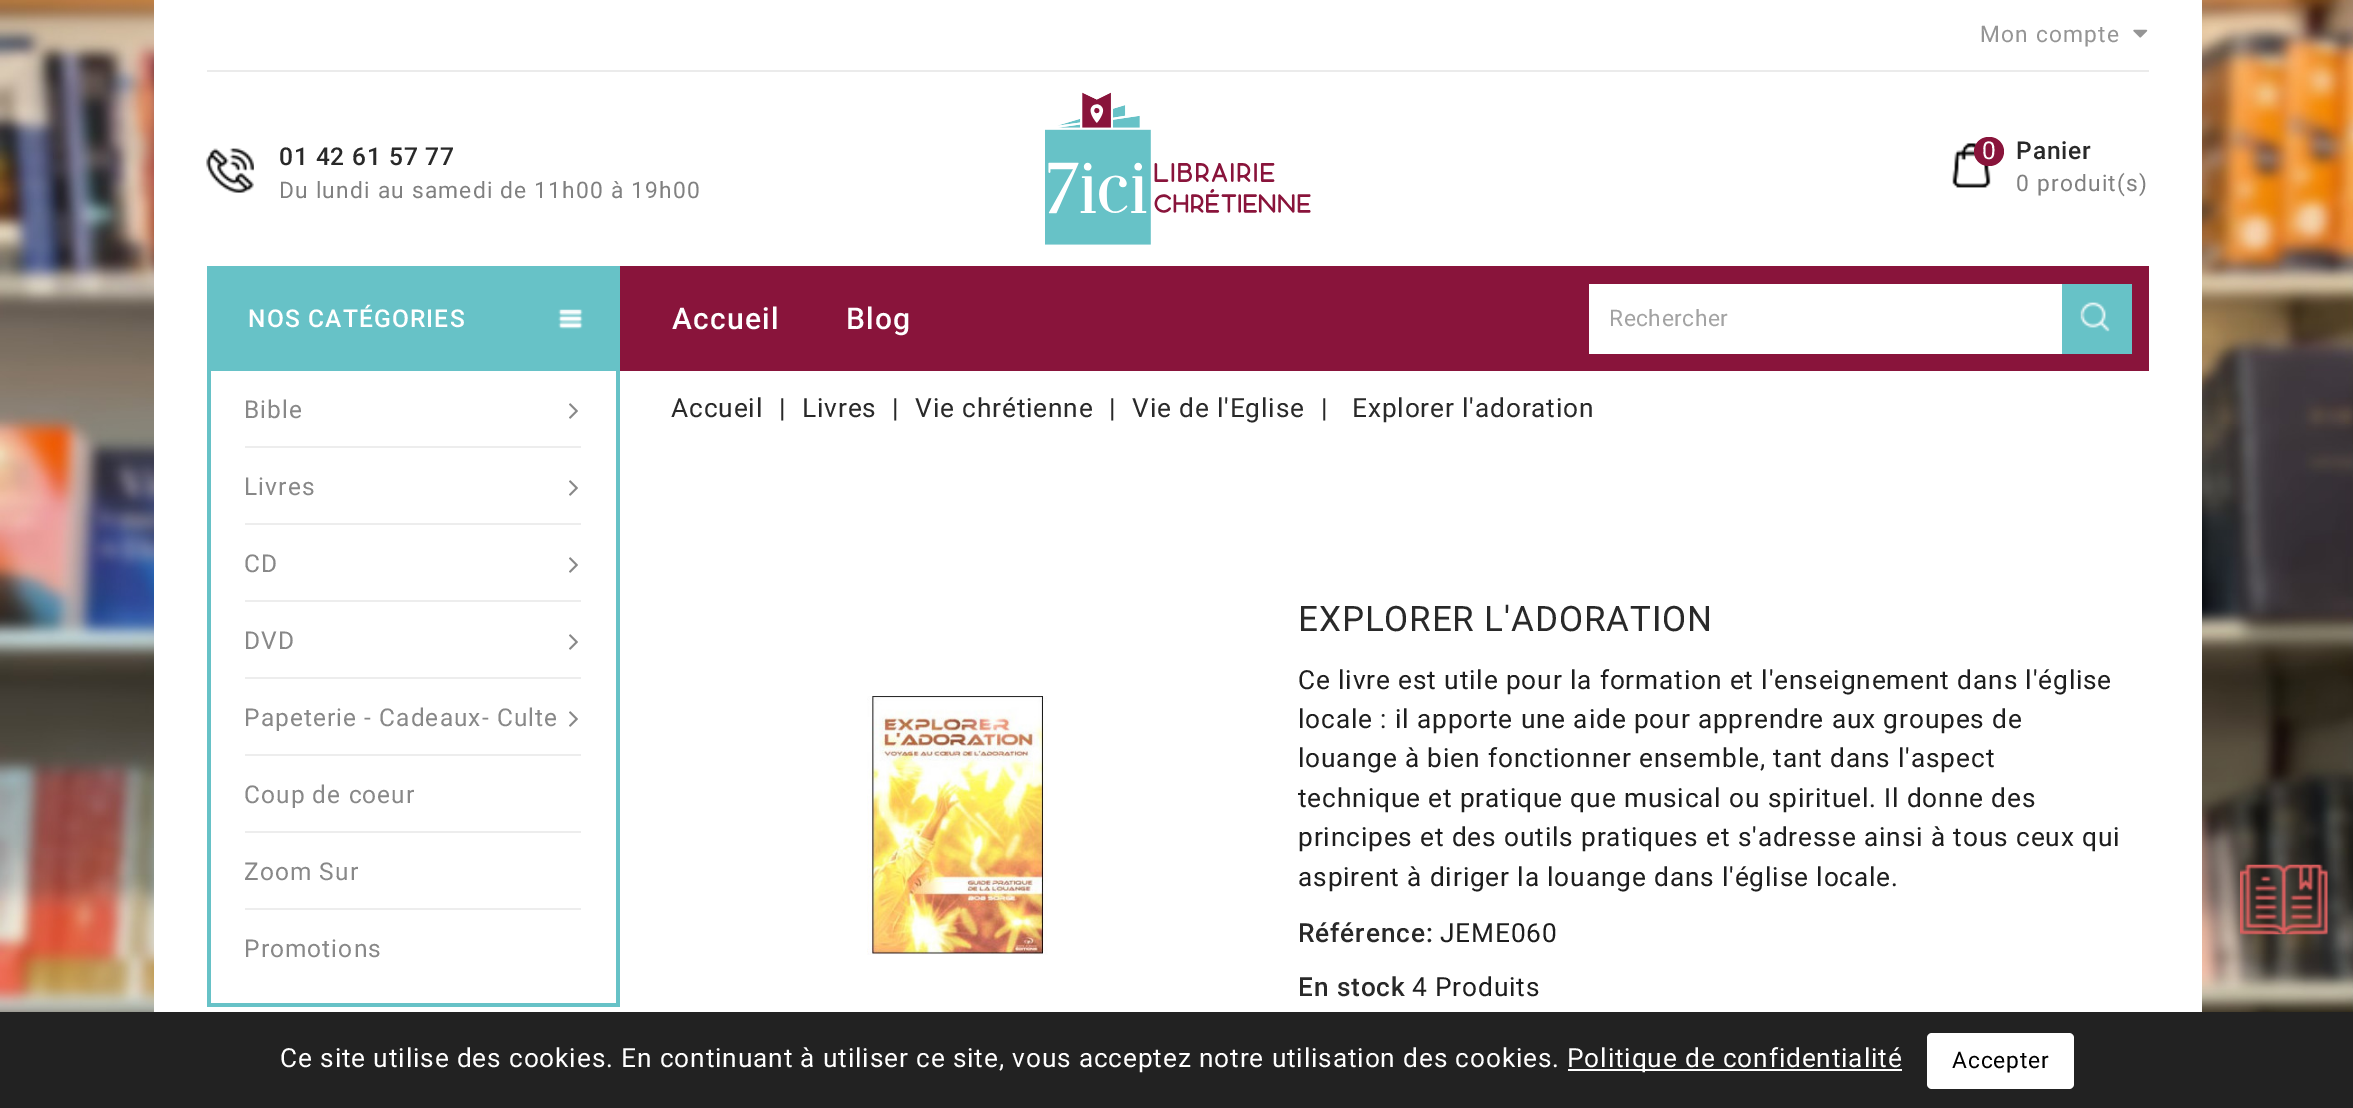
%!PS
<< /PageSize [2353 1108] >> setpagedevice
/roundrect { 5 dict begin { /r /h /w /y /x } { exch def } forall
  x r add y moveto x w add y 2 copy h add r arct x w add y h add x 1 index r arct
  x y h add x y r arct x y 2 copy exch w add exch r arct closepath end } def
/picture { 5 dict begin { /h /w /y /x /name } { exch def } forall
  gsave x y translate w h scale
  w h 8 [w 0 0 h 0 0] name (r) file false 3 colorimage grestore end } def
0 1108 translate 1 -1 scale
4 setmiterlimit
1 setgray
0 0 2353 1108 rectfill
(img1.rgb) 0 0 2353 1012 picture
154 0 2048 1012 rectfill
0.922 setgray
207 70 1942 2 rectfill
/Roboto-Regular [22.75 0 0 -22.75 0 0] selectfont
0.584 setgray
1980 42 moveto 1.2 0 (Mon compte) ashow
(img2.rgb) 2133 29 15 9 picture
(img3.rgb) 206 148 48 45 picture
/Roboto-Medium [24.5 0 0 -24.5 0 0] selectfont
0.161 setgray
279 165 moveto 0.88 0 (01 42 61 57 77) ashow
/Roboto-Regular [22.75 0 0 -22.75 0 0] selectfont
0.502 setgray
279 198 moveto 1.2 0 (Du lundi au samedi de 11h00 à 19h00) ashow
(img4.rgb) 1045 92 266 153 picture
(img5.rgb) 1952 143 39 45 picture
0.537 0.078 0.231 setrgbcolor
1974 137 30 29 14.5 roundrect fill
/Roboto-Regular [24.5 0 0 -24.5 0 0] selectfont
1 setgray
1982 159 moveto 0.88 0 (0) ashow
/Roboto-Medium [24.5 0 0 -24.5 0 0] selectfont
0.161 setgray
2016 159 moveto 0.88 0 (Panier) ashow
/Roboto-Regular [22.75 0 0 -22.75 0 0] selectfont
0.502 setgray
2016 191 moveto 1.2 0 (0 produit\(s\)) ashow
0.537 0.078 0.231 setrgbcolor
620 266 1529 105 rectfill
/Roboto-Medium [30 0 0 -30 0 0] selectfont
1 setgray
672 329 moveto 1.2 0 (Accueil) ashow
846 329 moveto 1.2 0 (Blog) ashow
1589 284 473 70 rectfill
/Roboto-Regular [22.75 0 0 -22.75 0 0] selectfont
0.639 setgray
1609 326 moveto 0.5 0 (Rechercher) ashow
0.404 0.761 0.78 setrgbcolor
2062 284 70 70 rectfill
(img6.rgb) 2080 302 30 30 picture
207 266 413 105 rectfill
/Roboto-Medium [24.5 0 0 -24.5 0 0] selectfont
1 setgray
248 327 moveto 1.2 0 (NOS CATÉGORIES) ashow
(img7.rgb) 558 309 25 20 picture
0.404 0.761 0.78 setrgbcolor
616 371 4 635 rectfill
207 1003 413 4 rectfill
207 371 4 635 rectfill
0.929 setgray
245 446 336 2 rectfill
/Roboto-Regular [24.5 0 0 -24.5 0 0] selectfont
0.533 setgray
244 418 moveto 1.05 0 (Bible) ashow
(img8.rgb) 569 403 9 16 picture
0.929 setgray
245 523 336 2 rectfill
0.533 setgray
244 495 moveto 1.05 0 (Livres) ashow
(img8.rgb) 569 480 9 16 picture
0.929 setgray
245 600 336 2 rectfill
0.533 setgray
244 572 moveto 1.05 0 (CD) ashow
(img8.rgb) 569 557 9 16 picture
0.929 setgray
245 677 336 2 rectfill
0.533 setgray
244 649 moveto 1.05 0 (DVD) ashow
(img8.rgb) 569 634 9 16 picture
0.929 setgray
245 754 336 2 rectfill
0.533 setgray
244 726 moveto 1.05 0 (Papeterie - Cadeaux- Culte) ashow
(img8.rgb) 569 711 9 16 picture
0.929 setgray
245 831 336 2 rectfill
0.533 setgray
244 803 moveto 1.05 0 (Coup de coeur) ashow
0.929 setgray
245 908 336 2 rectfill
0.533 setgray
244 880 moveto 1.05 0 (Zoom Sur) ashow
244 957 moveto 1.05 0 (Promotions) ashow
/Roboto-Regular [26.25 0 0 -26.25 0 0] selectfont
0.161 setgray
671 417 moveto 0.88 0 (Accueil) ashow
779 417 moveto 0.88 0 (|) ashow
802 417 moveto 0.88 0 (Livres) ashow
892 417 moveto 0.88 0 (|) ashow
915 417 moveto 0.88 0 (Vie chrétienne) ashow
1109 417 moveto 0.88 0 (|) ashow
1132 417 moveto 0.88 0 (Vie de l'Eglise) ashow
1321 417 moveto 0.88 0 (|) ashow
1352 417 moveto 0.88 0 (Explorer l'adoration) ashow
(img9.rgb) 867 696 181 259 picture
/Roboto-Regular [35 0 0 -35 0 0] selectfont
1298 631 moveto 0.88 0 (EXPLORER L'ADORATION) ashow
/Roboto-Regular [26.25 0 0 -26.25 0 0] selectfont
0.118 setgray
1298 689 moveto 0.88 0 (Ce livre est utile pour la formation et l'enseignement dans l'église) ashow
1298 728 moveto 0.88 0 (locale : il apporte une aide pour apprendre aux groupes de) ashow
1298 767 moveto 0.88 0 (louange à bien fonctionner ensemble, tant dans l'aspect) ashow
1298 807 moveto 0.88 0 (technique et pratique que musical ou spirituel. Il donne des) ashow
1298 846 moveto 0.88 0 (principes et des outils pratiques et s'adresse ainsi à tous ceux qui) ashow
1298 886 moveto 0.88 0 (aspirent à diriger la louange dans l'église locale.) ashow
/Roboto-Medium [26.25 0 0 -26.25 0 0] selectfont
0.161 setgray
1298 942 moveto 0.88 0 (Référence:) ashow
/Roboto-Regular [26.25 0 0 -26.25 0 0] selectfont
0.118 setgray
1440 942 moveto 0.88 0 (JEME060) ashow
/Roboto-Medium [26.25 0 0 -26.25 0 0] selectfont
0.161 setgray
1298 996 moveto 0.88 0 (En stock) ashow
/Roboto-Regular [26.25 0 0 -26.25 0 0] selectfont
0.118 setgray
1412 996 moveto 0.88 0 (4 Produits) ashow
(img10.rgb) 2240 864 88 71 picture
0.133 setgray
0 1012 2353 96 rectfill
1 setgray
280 1067 moveto 0.88 0 (Ce site utilise des cookies. En continuant à utiliser ce site, vous acceptez notre utilisation des cookies.) ashow
1568 1069 334 2 rectfill
1567 1067 moveto 0.88 0 (Politique de confidentialité) ashow
1927 1033 147 56 5 roundrect fill
/Roboto-Regular [22.75 0 0 -22.75 0 0] selectfont
0 setgray
1952 1068 moveto 0.88 0 (Accepter) ashow
showpage
